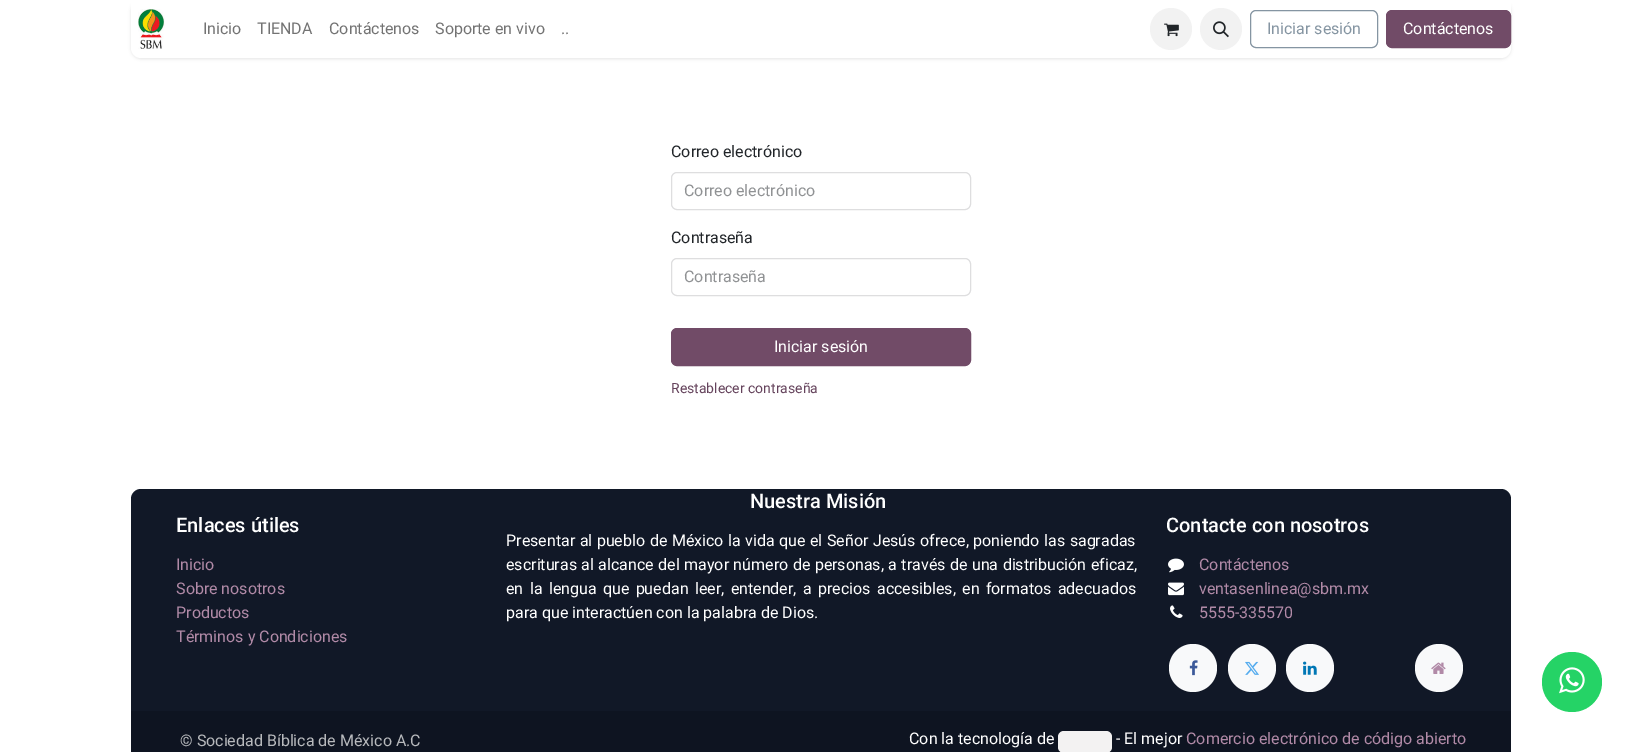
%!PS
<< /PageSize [1642 752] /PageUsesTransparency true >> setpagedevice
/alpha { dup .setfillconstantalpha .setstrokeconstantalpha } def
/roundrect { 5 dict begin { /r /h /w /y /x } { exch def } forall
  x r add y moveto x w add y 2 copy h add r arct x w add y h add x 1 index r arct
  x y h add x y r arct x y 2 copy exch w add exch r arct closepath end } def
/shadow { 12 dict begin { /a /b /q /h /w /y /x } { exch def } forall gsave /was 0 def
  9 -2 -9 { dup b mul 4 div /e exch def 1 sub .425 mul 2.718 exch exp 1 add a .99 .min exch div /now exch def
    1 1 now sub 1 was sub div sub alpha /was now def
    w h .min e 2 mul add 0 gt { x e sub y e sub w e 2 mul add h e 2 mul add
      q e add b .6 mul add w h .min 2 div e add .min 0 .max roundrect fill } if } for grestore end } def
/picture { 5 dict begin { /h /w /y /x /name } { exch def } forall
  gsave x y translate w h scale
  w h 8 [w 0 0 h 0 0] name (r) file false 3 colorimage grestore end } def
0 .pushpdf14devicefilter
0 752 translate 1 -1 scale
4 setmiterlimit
1 setgray
0 0 1642 752 rectfill
0 setgray
131 1 1380 58 10 1.5 0.1 shadow
1 setgray
newpath 131 0 moveto 1511 0 lineto 1511 48 lineto 1511 53.5 1506.5 58 1501 58 curveto 141 58 lineto 135.5 58 131 53.5 131 48 curveto closepath fill
(img1.rgb) 138 9 27 40 picture
/Roboto-Regular [16 0 0 -16 0 0] selectfont
0.451 setgray
203 34 moveto (Inicio) show
257 34 moveto (TIENDA) show
329 34 moveto (Contáctenos) show
435 34 moveto (Soporte en vivo) show
561 34 moveto (..) show
0.949 setgray
newpath 1171 29 21 0 360 arc closepath fill
(img2.rgb) 1164 23 15 14 picture
newpath 1221 29 21 0 360 arc closepath fill
(img3.rgb) 1213 21 16 17 picture
0.522 0.584 0.635 setrgbcolor
1250.5 10.5 127 37 5.5 roundrect stroke
1267 34 moveto (Iniciar sesión) show
0.443 0.294 0.404 setrgbcolor
1386.5 10.5 124 37 5.5 roundrect gsave fill grestore
stroke
1 setgray
1403 34 moveto (Contáctenos) show
0.129 0.145 0.161 setrgbcolor
671 157 moveto (Correo electrónico) show
0.871 0.871 0.875 setrgbcolor
671.5 172.5 299 37 5.5 roundrect stroke
0.565 0.573 0.58 setrgbcolor
684 196 moveto (Correo electrónico) show
0.129 0.145 0.161 setrgbcolor
671 243 moveto (Contraseña) show
0.871 0.871 0.875 setrgbcolor
671.5 258.5 299 37 5.5 roundrect stroke
0.565 0.573 0.58 setrgbcolor
684 282 moveto (Contraseña) show
0.443 0.294 0.404 setrgbcolor
671.5 328.5 299 37 5.5 roundrect gsave fill grestore
stroke
1 setgray
774 352 moveto (Iniciar sesión) show
/Roboto-Regular [14 0 0 -14 0 0] selectfont
0.396 0.263 0.361 setrgbcolor
671 393 moveto (Restablecer contraseña) show
0.067 0.094 0.153 setrgbcolor
newpath 141 489 moveto 1501 489 lineto 1506.5 489 1511 493.5 1511 499 curveto 1511 752 lineto 131 752 lineto 131 499 lineto 131 493.5 135.5 489 141 489 curveto closepath fill
/Roboto-Medium [20 0 0 -20 0 0] selectfont
1 setgray
176 532 moveto (Enlaces útiles) show
/Roboto-Regular [16 0 0 -16 0 0] selectfont
0.694 0.541 0.655 setrgbcolor
176 570 moveto (Inicio) show
176 594 moveto (Sobre nosotros) show
176 618 moveto (Productos) show
176 642 moveto (Términos y Condiciones) show
/Roboto-Medium [20 0 0 -20 0 0] selectfont
1 setgray
750 508 moveto (Nuestra Misión) show
/Roboto-Regular [16 0 0 -16 0 0] selectfont
506 546 moveto 0.6 0 32 (Presentar al pueblo de México la vida que el Señor Jesús ofrece, poniendo las sagradas) widthshow
506 570 moveto 0.5 0 32 (escrituras al alcance del mayor número de personas, a través de una distribución eficaz,) widthshow
506 594 moveto 2.4 0 32 (en la lengua que puedan leer, entender, a precios accesibles, en formatos adecuados) widthshow
506 618 moveto (para que interactúen con la palabra de Dios.) show
/Roboto-Medium [20 0 0 -20 0 0] selectfont
1166 532 moveto (Contacte con nosotros) show
(img4.rgb) 1168 558 16 15 picture
/Roboto-Regular [16 0 0 -16 0 0] selectfont
0.694 0.541 0.655 setrgbcolor
1199 570 moveto (Contáctenos) show
(img5.rgb) 1168 582 16 14 picture
1199 594 moveto (ventasenlinea@sbm.mx) show
(img6.rgb) 1170 605 13 13 picture
1199 618 moveto (5555-335570) show
0.973 0.976 0.98 setrgbcolor
newpath 1193 668 24 0 360 arc closepath fill
(img7.rgb) 1189 660 9 16 picture
newpath 1252 668 24 0 360 arc closepath fill
(img8.rgb) 1245 661 14 14 picture
newpath 1310 668 24 0 360 arc closepath fill
(img9.rgb) 1303 661 14 14 picture
newpath 1439 668 24 0 360 arc closepath fill
(img10.rgb) 1431 662 15 12 picture
0.055 0.078 0.129 setrgbcolor
131 711 1380 41 rectfill
0.718 0.725 0.737 setrgbcolor
180 746 moveto (© Sociedad Bíblica de México A.C) show
1 setgray
909 744 moveto (Con la tecnología de) show
0.953 0.949 0.949 setrgbcolor
1058 731 54 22 6 roundrect fill
1 setgray
1116 744 moveto (- El mejor) show
0.694 0.541 0.655 setrgbcolor
1186 744 moveto (Comercio electrónico de código abierto) show
0.145 0.827 0.4 setrgbcolor
newpath 1572 682 30 0 360 arc closepath fill
(img11.rgb) 1559 667 26 27 picture
.poppdf14devicefilter showpage
